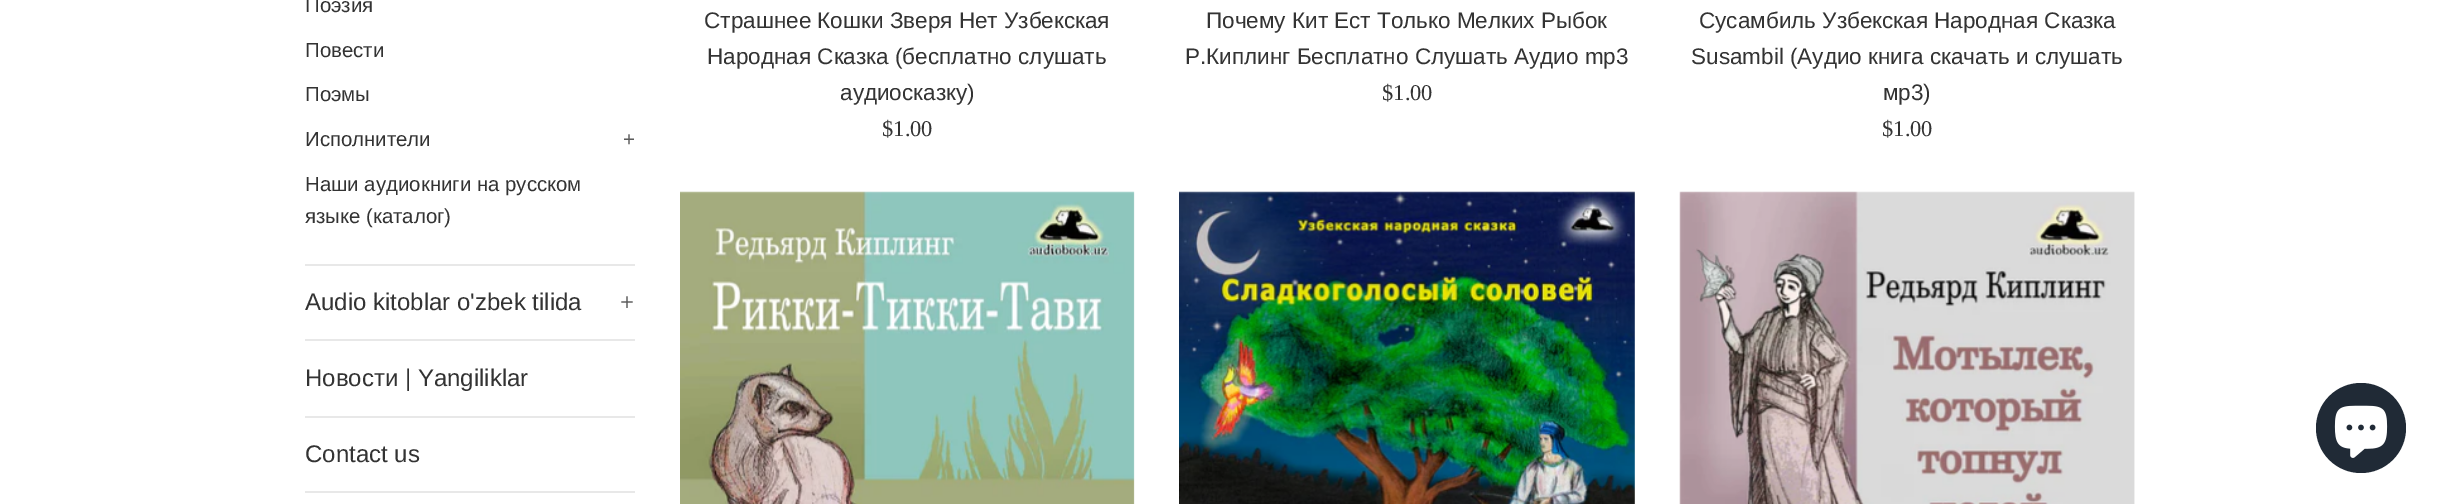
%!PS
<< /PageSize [2439 504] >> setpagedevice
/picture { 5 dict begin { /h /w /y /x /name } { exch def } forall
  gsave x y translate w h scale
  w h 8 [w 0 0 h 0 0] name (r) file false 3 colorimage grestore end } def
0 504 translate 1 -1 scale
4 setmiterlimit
1 setgray
0 0 2439 504 rectfill
0.91 setgray
305 264 330 2 rectfill
/LiberationSans-Regular [20.4 0 0 -20.4 0 0] selectfont
0.2 setgray
305 12 moveto (Поэзия) show
305 57 moveto (Повести) show
305 101 moveto (Поэмы) show
305 146 moveto (Исполнители) show
0.361 setgray
623 146 moveto (+) show
0.2 setgray
305 191 moveto (Наши аудиокниги на русском) show
305 223 moveto (языке \(каталог\)) show
0.91 setgray
305 339 330 2 rectfill
/LiberationSans-Regular [24 0 0 -24 0 0] selectfont
0.2 setgray
305 310 moveto (Audio kitoblar o'zbek tilida) show
0.361 setgray
620 310 moveto (+) show
0.91 setgray
305 416 330 2 rectfill
0.2 setgray
305 386 moveto (Новости | Yangiliklar) show
0.91 setgray
305 491 330 2 rectfill
0.2 setgray
305 462 moveto (Contact us) show
/LiberationSans-Regular [22.5 0 0 -22.5 0 0] selectfont
704 28 moveto (Страшнее Кошки Зверя Нет Узбекская) show
707 64 moveto (Народная Сказка \(бесплатно слушать) show
840 100 moveto (аудиосказку\)) show
/LiberationSerif-Regular [22.5 0 0 -22.5 0 0] selectfont
882 136 moveto ($1.00) show
/LiberationSans-Regular [22.5 0 0 -22.5 0 0] selectfont
1206 28 moveto (Почему Кит Ест Только Мелких Рыбок) show
1185 64 moveto (Р.Киплинг Бесплатно Слушать Аудио mp3) show
/LiberationSerif-Regular [22.5 0 0 -22.5 0 0] selectfont
1382 100 moveto ($1.00) show
/LiberationSans-Regular [22.5 0 0 -22.5 0 0] selectfont
1699 28 moveto (Сусамбиль Узбекская Народная Сказка) show
1691 64 moveto (Susambil \(Аудио книга скачать и слушать) show
1883 100 moveto (мр3\)) show
/LiberationSerif-Regular [22.5 0 0 -22.5 0 0] selectfont
1882 136 moveto ($1.00) show
(img1.rgb) 680 191 455 313 picture
(img2.rgb) 1179 191 456 313 picture
(img3.rgb) 1679 191 456 313 picture
0.125 0.165 0.212 setrgbcolor
newpath 2361 428 45 0 360 arc closepath fill
(img4.rgb) 2334 405 54 53 picture
showpage
